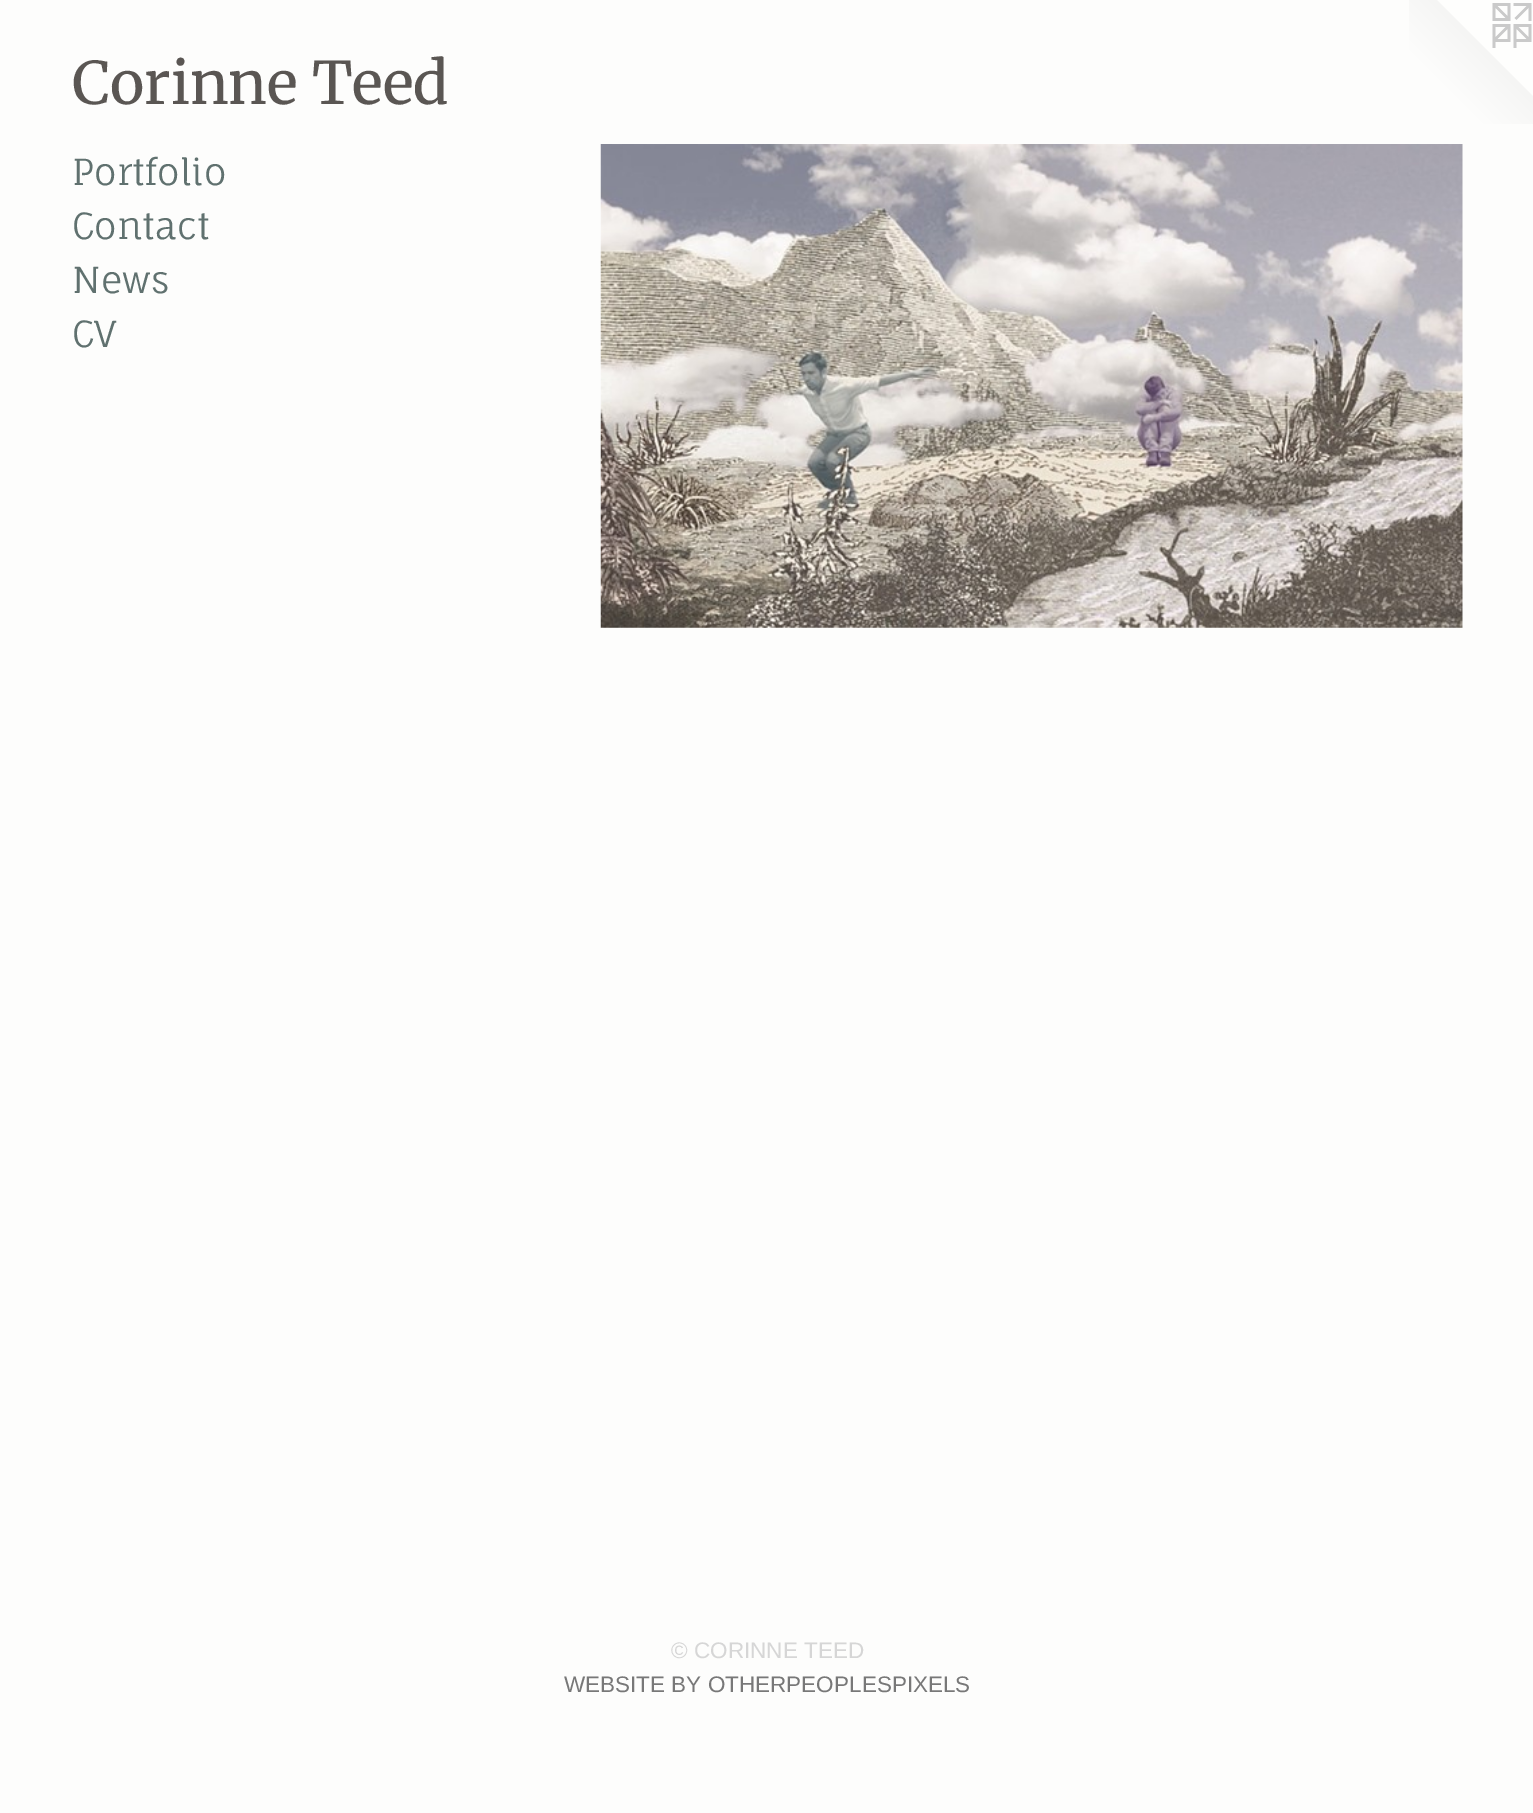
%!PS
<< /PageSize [1533 1813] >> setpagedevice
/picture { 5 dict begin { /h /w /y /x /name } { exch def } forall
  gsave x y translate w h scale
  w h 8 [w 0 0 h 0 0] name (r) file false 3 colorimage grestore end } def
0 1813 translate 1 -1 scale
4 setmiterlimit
0.992 0.992 0.988 setrgbcolor
0 0 1533 1813 rectfill
/Merriweather-Light [58.5 0 0 -58.5 0 0] selectfont
0.353 0.337 0.325 setrgbcolor
72 104 moveto (Corinne Teed) show
(img1.rgb) 1409 0 124 124 picture
/FaunaOne-Regular [36 0 0 -36 0 0] selectfont
0.376 0.443 0.435 setrgbcolor
72 185 moveto (Portfolio) show
72 239 moveto (Contact) show
72 293 moveto (News) show
72 347 moveto (CV) show
(img2.rgb) 600 144 863 484 picture
/LiberationSans-Regular [22.5 0 0 -22.5 0 0] selectfont
0.839 setgray
671 1658 moveto (© CORINNE TEED) show
0.471 setgray
564 1692 moveto (WEBSITE BY OTHERPEOPLESPIXELS) show
showpage
